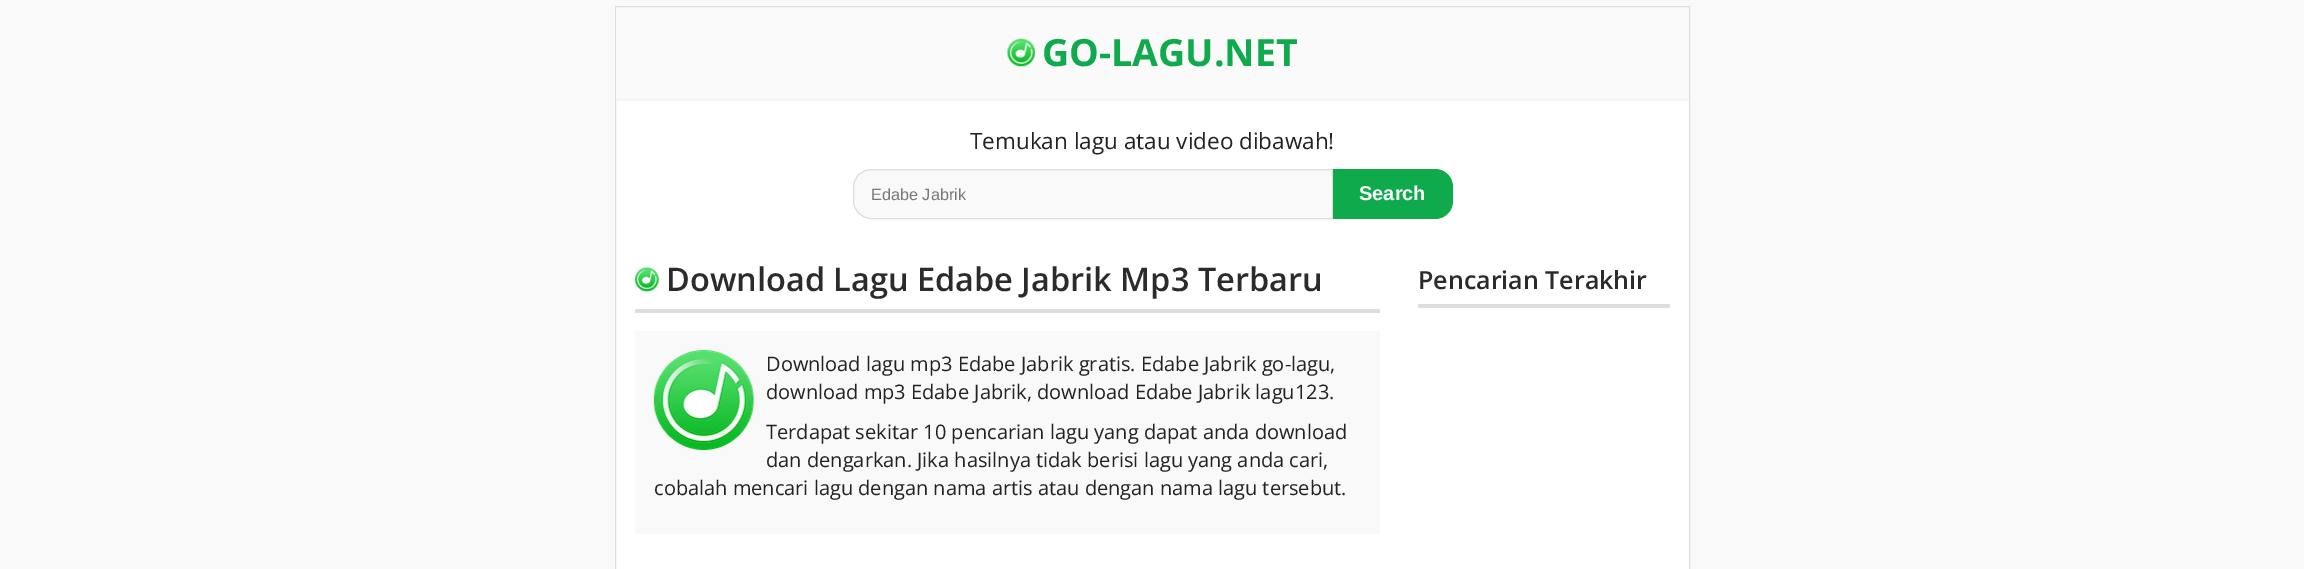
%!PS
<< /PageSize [2304 569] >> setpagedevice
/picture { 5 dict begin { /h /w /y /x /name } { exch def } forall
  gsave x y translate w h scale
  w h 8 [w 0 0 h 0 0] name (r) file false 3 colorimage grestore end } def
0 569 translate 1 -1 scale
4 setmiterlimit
0.976 setgray
0 0 2304 569 rectfill
1 setgray
newpath 615.5 6.5 moveto 1689.5 6.5 lineto 1689.5 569.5 lineto 615.5 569.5 lineto closepath gsave fill grestore
0.867 setgray
stroke
0.98 setgray
616 8 1073 90 rectfill
0.969 setgray
616 98 1073 3 rectfill
(img1.rgb) 1007 38 28 29 picture
/OpenSans-Bold [37.5 0 0 -37.5 0 0] selectfont
0.055 0.667 0.298 setrgbcolor
1042 66 moveto (GO-LAGU.NET) show
/OpenSans-Regular [22.5 0 0 -22.5 0 0] selectfont
0.133 setgray
970 149 moveto (Temukan lagu atau video dibawah!) show
0.976 setgray
newpath 871 169.5 moveto 1332.5 169.5 lineto 1332.5 218.5 lineto 871 218.5 lineto 861.5 218.5 853.5 210.5 853.5 201 curveto 853.5 187 lineto 853.5 177.5 861.5 169.5 871 169.5 curveto closepath gsave fill grestore
0.867 setgray
stroke
/LiberationSans-Regular [16.25 0 0 -16.25 0 0] selectfont
0.467 setgray
871 200 moveto (Edabe Jabrik) show
0.055 0.667 0.298 setrgbcolor
newpath 1333 169 moveto 1435 169 lineto 1445 169 1453 177 1453 187 curveto 1453 201 lineto 1453 211 1445 219 1435 219 curveto 1333 219 lineto closepath fill
/LiberationSans-Bold [20 0 0 -20 0 0] selectfont
1 setgray
1359 200 moveto (Search) show
0.867 setgray
635 309 745 4 rectfill
(img2.rgb) 635 267 24 25 picture
/OpenSans-SemiBold [32.5 0 0 -32.5 0 0] selectfont
0.169 setgray
666 291 moveto (Download Lagu Edabe Jabrik Mp3 Terbaru) show
0.976 setgray
635 331 745 203 rectfill
(img3.rgb) 653 350 101 100 picture
/OpenSans-Regular [20 0 0 -20 0 0] selectfont
0.133 setgray
766 371 moveto (Download lagu mp3 Edabe Jabrik gratis. Edabe Jabrik go-lagu,) show
766 399 moveto (download mp3 Edabe Jabrik, download Edabe Jabrik lagu123.) show
766 439 moveto (Terdapat sekitar 10 pencarian lagu yang dapat anda download) show
766 467 moveto (dan dengarkan. Jika hasilnya tidak berisi lagu yang anda cari,) show
654 495 moveto (cobalah mencari lagu dengan nama artis atau dengan nama lagu tersebut.) show
0.867 setgray
1418 304 252 4 rectfill
/OpenSans-SemiBold [25 0 0 -25 0 0] selectfont
0.169 setgray
1418 289 moveto (Pencarian Terakhir) show
showpage
